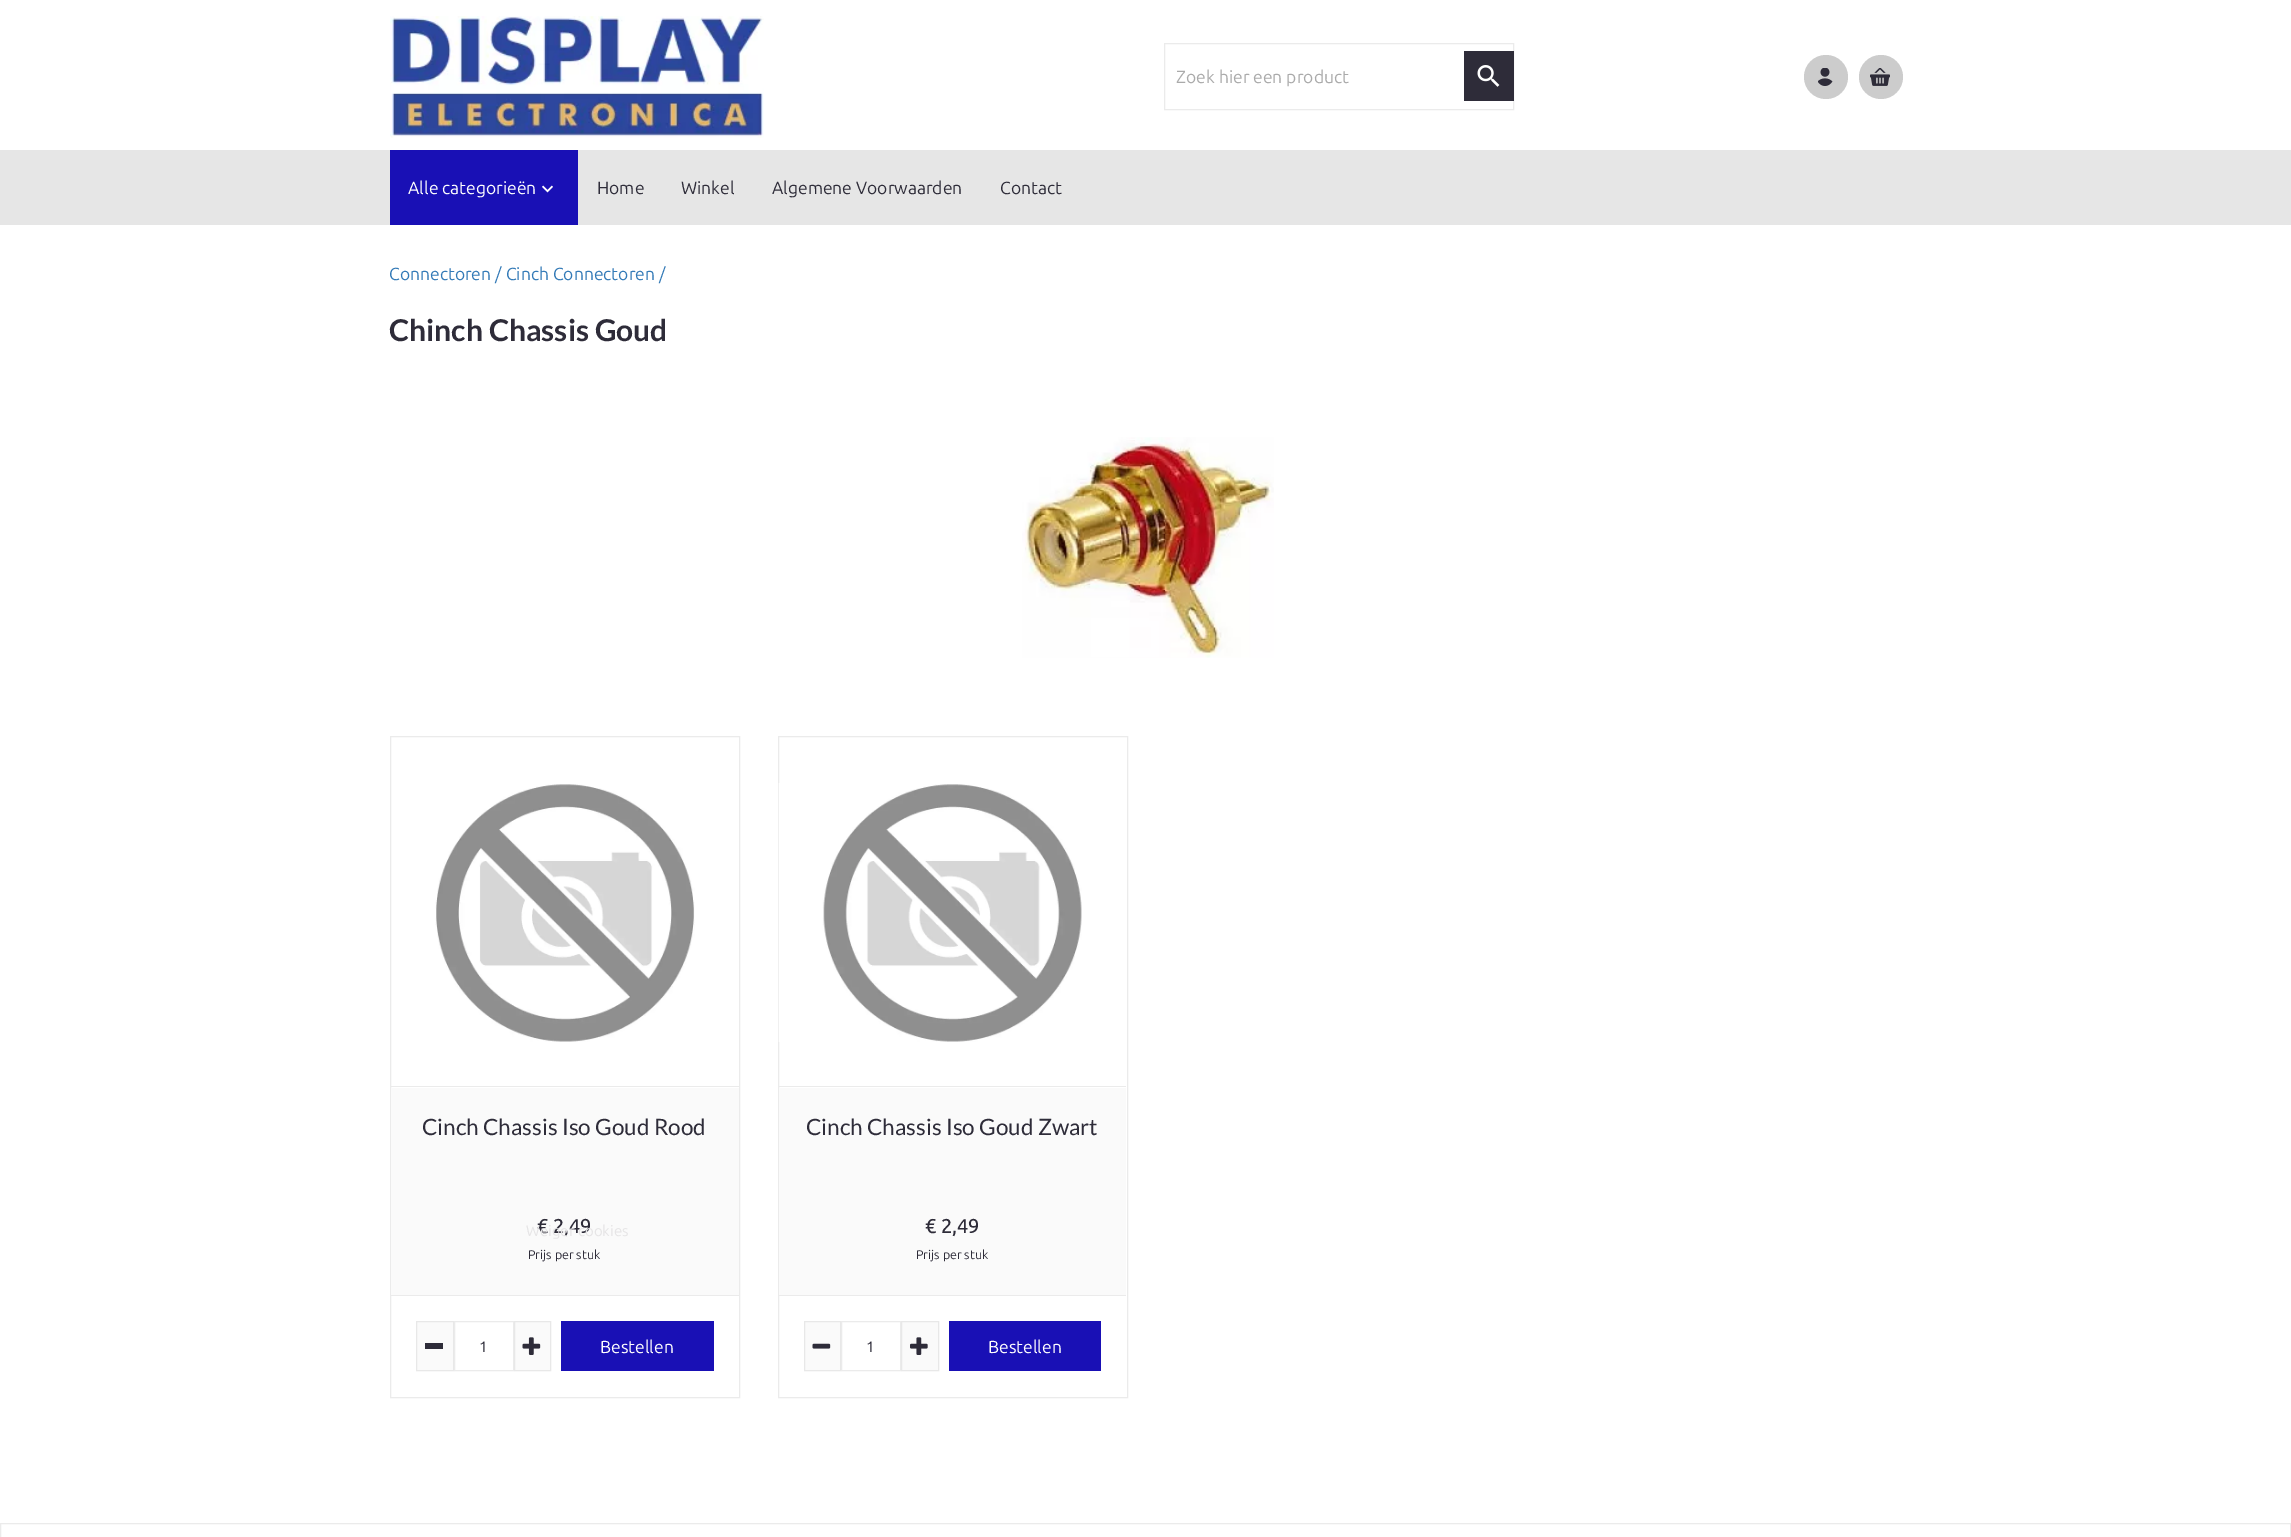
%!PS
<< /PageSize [2291 1537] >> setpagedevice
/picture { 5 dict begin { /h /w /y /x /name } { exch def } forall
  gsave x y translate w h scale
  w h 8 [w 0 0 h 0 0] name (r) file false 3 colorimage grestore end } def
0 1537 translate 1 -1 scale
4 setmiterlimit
1 setgray
0 0 2291 1537 rectfill
(img1.rgb) 390 16 374 122 picture
0.922 setgray
1164.5 43.5 349 66 rectstroke
/Ubuntu-Regular [17.5 0 0 -17.5 0 0] selectfont
0.667 setgray
1176 83 moveto (Zoek hier een product) show
0.18 0.173 0.224 setrgbcolor
1464 51 50 50 rectfill
(img2.rgb) 1477 65 23 22 picture
0.8 setgray
newpath 1826 77 22 0 360 arc closepath fill
(img3.rgb) 1818 68 15 18 picture
newpath 1881 77 22 0 360 arc closepath fill
(img4.rgb) 1870 68 20 18 picture
0.902 setgray
0 150 2291 75 rectfill
0.098 0.063 0.71 setrgbcolor
390 150 188 75 rectfill
1 setgray
408 194 moveto (Alle categorieën) show
(img5.rgb) 542 185 11 8 picture
0.18 0.173 0.224 setrgbcolor
597 194 moveto (Home) show
681 194 moveto (Winkel) show
772 194 moveto (Algemene Voorwaarden) show
1000 194 moveto (Contact) show
0.2 0.478 0.718 setrgbcolor
389 280 moveto (Connectoren / Cinch Connectoren /) show
/Lato-Bold [30 0 0 -30 0 0] selectfont
0.18 0.173 0.224 setrgbcolor
389 341 moveto (Chinch Chassis Goud) show
(img6.rgb) 1022 437 252 221 picture
0.922 setgray
390.5 736.5 349 661 rectstroke
391 1086 348 1 rectfill
(img7.rgb) 435 784 260 258 picture
0.98 setgray
391 1088 348 207 rectfill
0.922 setgray
391 1295 348 1 rectfill
/Lato-Regular [22.5 0 0 -22.5 0 0] selectfont
0.18 0.173 0.224 setrgbcolor
422 1135 moveto (Cinch Chassis Iso Goud Rood) show
/Ubuntu-Medium [20 0 0 -20 0 0] selectfont
537 1233 moveto (€ 2,49) show
/Ubuntu-Regular [12.5 0 0 -12.5 0 0] selectfont
528 1259 moveto (Prijs per stuk) show
0.98 setgray
newpath 416.5 1321.5 moveto 453.5 1321.5 lineto 453.5 1370.5 lineto 416.5 1370.5 lineto closepath gsave fill grestore
0.91 setgray
stroke
0.18 0.173 0.224 setrgbcolor
425 1343 18 6 rectfill
0.922 setgray
454.5 1321.5 59 49 rectstroke
/Ubuntu-Regular [15 0 0 -15 0 0] selectfont
0.18 0.173 0.224 setrgbcolor
479 1352 moveto (1) show
0.98 setgray
newpath 514.5 1321.5 moveto 550.5 1321.5 lineto 550.5 1370.5 lineto 514.5 1370.5 lineto closepath gsave fill grestore
0.91 setgray
stroke
(img8.rgb) 522 1337 19 18 picture
0.098 0.063 0.71 setrgbcolor
561 1321 153 50 rectfill
/Ubuntu-Regular [17.5 0 0 -17.5 0 0] selectfont
1 setgray
600 1353 moveto (Bestellen) show
0.922 setgray
778.5 736.5 349 661 rectstroke
779 1086 347 1 rectfill
(img9.rgb) 778 783 304 259 picture
0.98 setgray
779 1088 347 207 rectfill
0.922 setgray
779 1295 347 1 rectfill
/Lato-Regular [22.5 0 0 -22.5 0 0] selectfont
0.18 0.173 0.224 setrgbcolor
806 1135 moveto (Cinch Chassis Iso Goud Zwart) show
/Ubuntu-Medium [20 0 0 -20 0 0] selectfont
925 1233 moveto (€ 2,49) show
/Ubuntu-Regular [12.5 0 0 -12.5 0 0] selectfont
916 1259 moveto (Prijs per stuk) show
0.98 setgray
newpath 804.5 1321.5 moveto 840.5 1321.5 lineto 840.5 1370.5 lineto 804.5 1370.5 lineto closepath gsave fill grestore
0.91 setgray
stroke
(img10.rgb) 812 1343 19 6 picture
0.922 setgray
841.5 1321.5 59 49 rectstroke
/Ubuntu-Regular [15 0 0 -15 0 0] selectfont
0.18 0.173 0.224 setrgbcolor
866 1352 moveto (1) show
0.98 setgray
newpath 901.5 1321.5 moveto 938.5 1321.5 lineto 938.5 1370.5 lineto 901.5 1370.5 lineto closepath gsave fill grestore
0.91 setgray
stroke
(img11.rgb) 910 1337 18 18 picture
0.098 0.063 0.71 setrgbcolor
949 1321 152 50 rectfill
/Ubuntu-Regular [17.5 0 0 -17.5 0 0] selectfont
1 setgray
988 1353 moveto (Bestellen) show
/Ubuntu-Regular [15 0 0 -15 0 0] selectfont
0.902 0.898 0.902 setrgbcolor
526 1236 moveto (Weiger cookies) show
0.922 setgray
0.5 1523.5 2290 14 rectstroke
showpage
